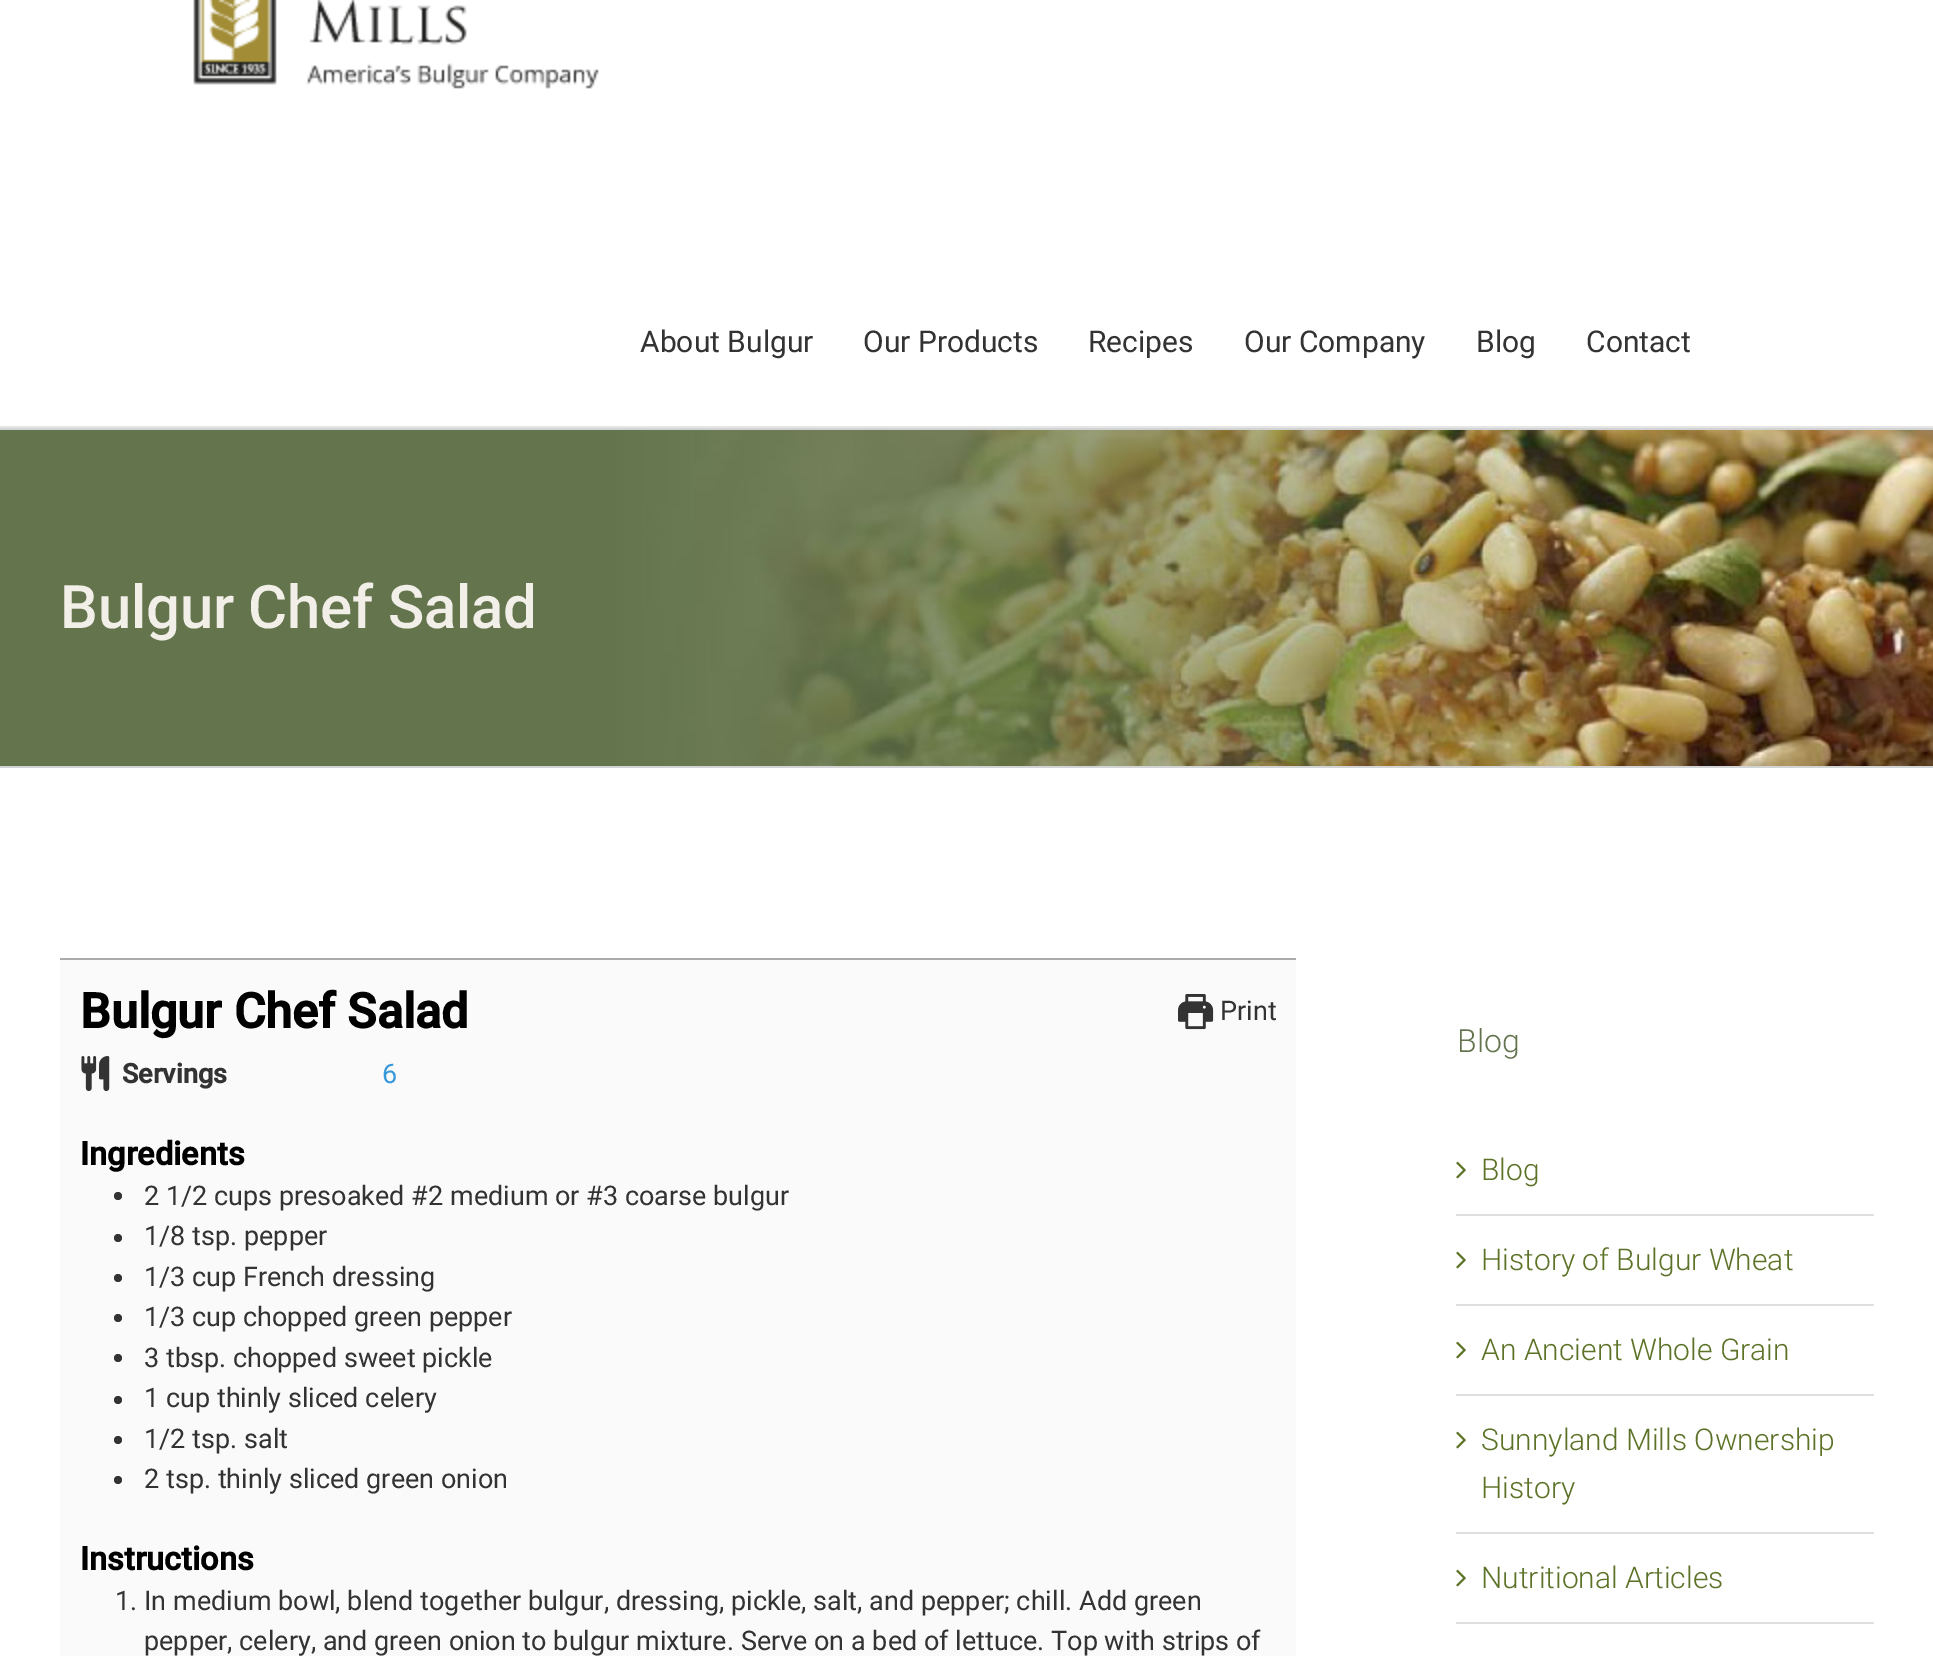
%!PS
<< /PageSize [1933 1656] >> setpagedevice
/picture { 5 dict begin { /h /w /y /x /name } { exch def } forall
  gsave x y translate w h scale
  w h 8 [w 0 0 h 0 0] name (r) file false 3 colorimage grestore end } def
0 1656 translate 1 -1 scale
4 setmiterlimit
1 setgray
0 0 1933 1656 rectfill
0.898 setgray
0 426 1933 2 rectfill
(img1.rgb) 193 0 406 89 picture
/Roboto-Regular [30 0 0 -30 0 0] selectfont
0.2 setgray
640 352 moveto (About Bulgur) show
863 352 moveto (Our Products) show
1088 352 moveto (Recipes) show
1244 352 moveto (Our Company) show
1476 352 moveto (Blog) show
1586 352 moveto (Contact) show
(img2.rgb) 0 430 1933 336 picture
0.824 0.827 0.831 setrgbcolor
0 428 1933 2 rectfill
0 766 1933 2 rectfill
/Roboto-Medium [60 0 0 -60 0 0] selectfont
0.945 0.937 0.91 setrgbcolor
60 628 moveto -0.25 0 (Bulgur Chef Salad) ashow
0.98 setgray
60 960 1236 696 rectfill
0.667 setgray
60 958 1236 2 rectfill
/Roboto-Bold [48.5 0 0 -48.5 0 0] selectfont
0 setgray
80 1028 moveto (Bulgur Chef Salad) show
(img3.rgb) 1178 994 36 36 picture
/Roboto-Regular [27 0 0 -27 0 0] selectfont
0.2 setgray
1220 1020 moveto (Print) show
(img4.rgb) 81 1056 29 36 picture
/Roboto-Bold [27 0 0 -27 0 0] selectfont
122 1083 moveto (Servings) show
/Roboto-Regular [27 0 0 -27 0 0] selectfont
0.204 0.596 0.859 setrgbcolor
382 1083 moveto (6) show
/Roboto-Bold [32.5 0 0 -32.5 0 0] selectfont
0 setgray
80 1165 moveto (Ingredients) show
0.2 setgray
newpath 118 1196 4 0 360 arc closepath fill
/Roboto-Regular [27 0 0 -27 0 0] selectfont
144 1205 moveto (2 1/2 cups presoaked #2 medium or #3 coarse bulgur) show
newpath 118 1238 4 0 360 arc closepath fill
144 1245 moveto (1/8 tsp. pepper) show
newpath 118 1278 4 0 360 arc closepath fill
144 1286 moveto (1/3 cup French dressing) show
newpath 118 1318 4 0 360 arc closepath fill
144 1326 moveto (1/3 cup chopped green pepper) show
newpath 118 1358 4 0 360 arc closepath fill
144 1367 moveto (3 tbsp. chopped sweet pickle) show
newpath 118 1400 4 0 360 arc closepath fill
144 1407 moveto (1 cup thinly sliced celery) show
newpath 118 1440 4 0 360 arc closepath fill
144 1448 moveto (1/2 tsp. salt) show
newpath 118 1480 4 0 360 arc closepath fill
144 1488 moveto (2 tsp. thinly sliced green onion) show
/Roboto-Bold [32.5 0 0 -32.5 0 0] selectfont
0 setgray
80 1570 moveto (Instructions) show
/Roboto-Regular [27 0 0 -27 0 0] selectfont
0.2 setgray
115 1610 moveto (1. In medium bowl, blend together bulgur, dressing, pickle, salt, and pepper; chill. Add green) show
144 1650 moveto (pepper, celery, and green onion to bulgur mixture. Serve on a bed of lettuce. Top with strips of) show
/Roboto-Light [32 0 0 -32 0 0] selectfont
0.392 0.455 0.306 setrgbcolor
1457 1052 moveto (Blog) show
0.878 0.871 0.871 setrgbcolor
1456 1214 418 2 rectfill
(img5.rgb) 1456 1161 10 18 picture
/Roboto-Light [30 0 0 -30 0 0] selectfont
0.361 0.447 0.153 setrgbcolor
1481 1180 moveto (Blog) show
0.878 0.871 0.871 setrgbcolor
1456 1304 418 2 rectfill
(img5.rgb) 1456 1251 10 18 picture
0.361 0.447 0.153 setrgbcolor
1481 1270 moveto (History of Bulgur Wheat) show
0.878 0.871 0.871 setrgbcolor
1456 1394 418 2 rectfill
(img5.rgb) 1456 1341 10 18 picture
0.361 0.447 0.153 setrgbcolor
1481 1360 moveto (An Ancient Whole Grain) show
0.878 0.871 0.871 setrgbcolor
1456 1532 418 2 rectfill
(img5.rgb) 1456 1431 10 18 picture
0.361 0.447 0.153 setrgbcolor
1481 1450 moveto (Sunnyland Mills Ownership) show
1481 1498 moveto (History) show
0.878 0.871 0.871 setrgbcolor
1456 1622 418 2 rectfill
(img5.rgb) 1456 1569 10 18 picture
0.361 0.447 0.153 setrgbcolor
1481 1588 moveto (Nutritional Articles) show
showpage
